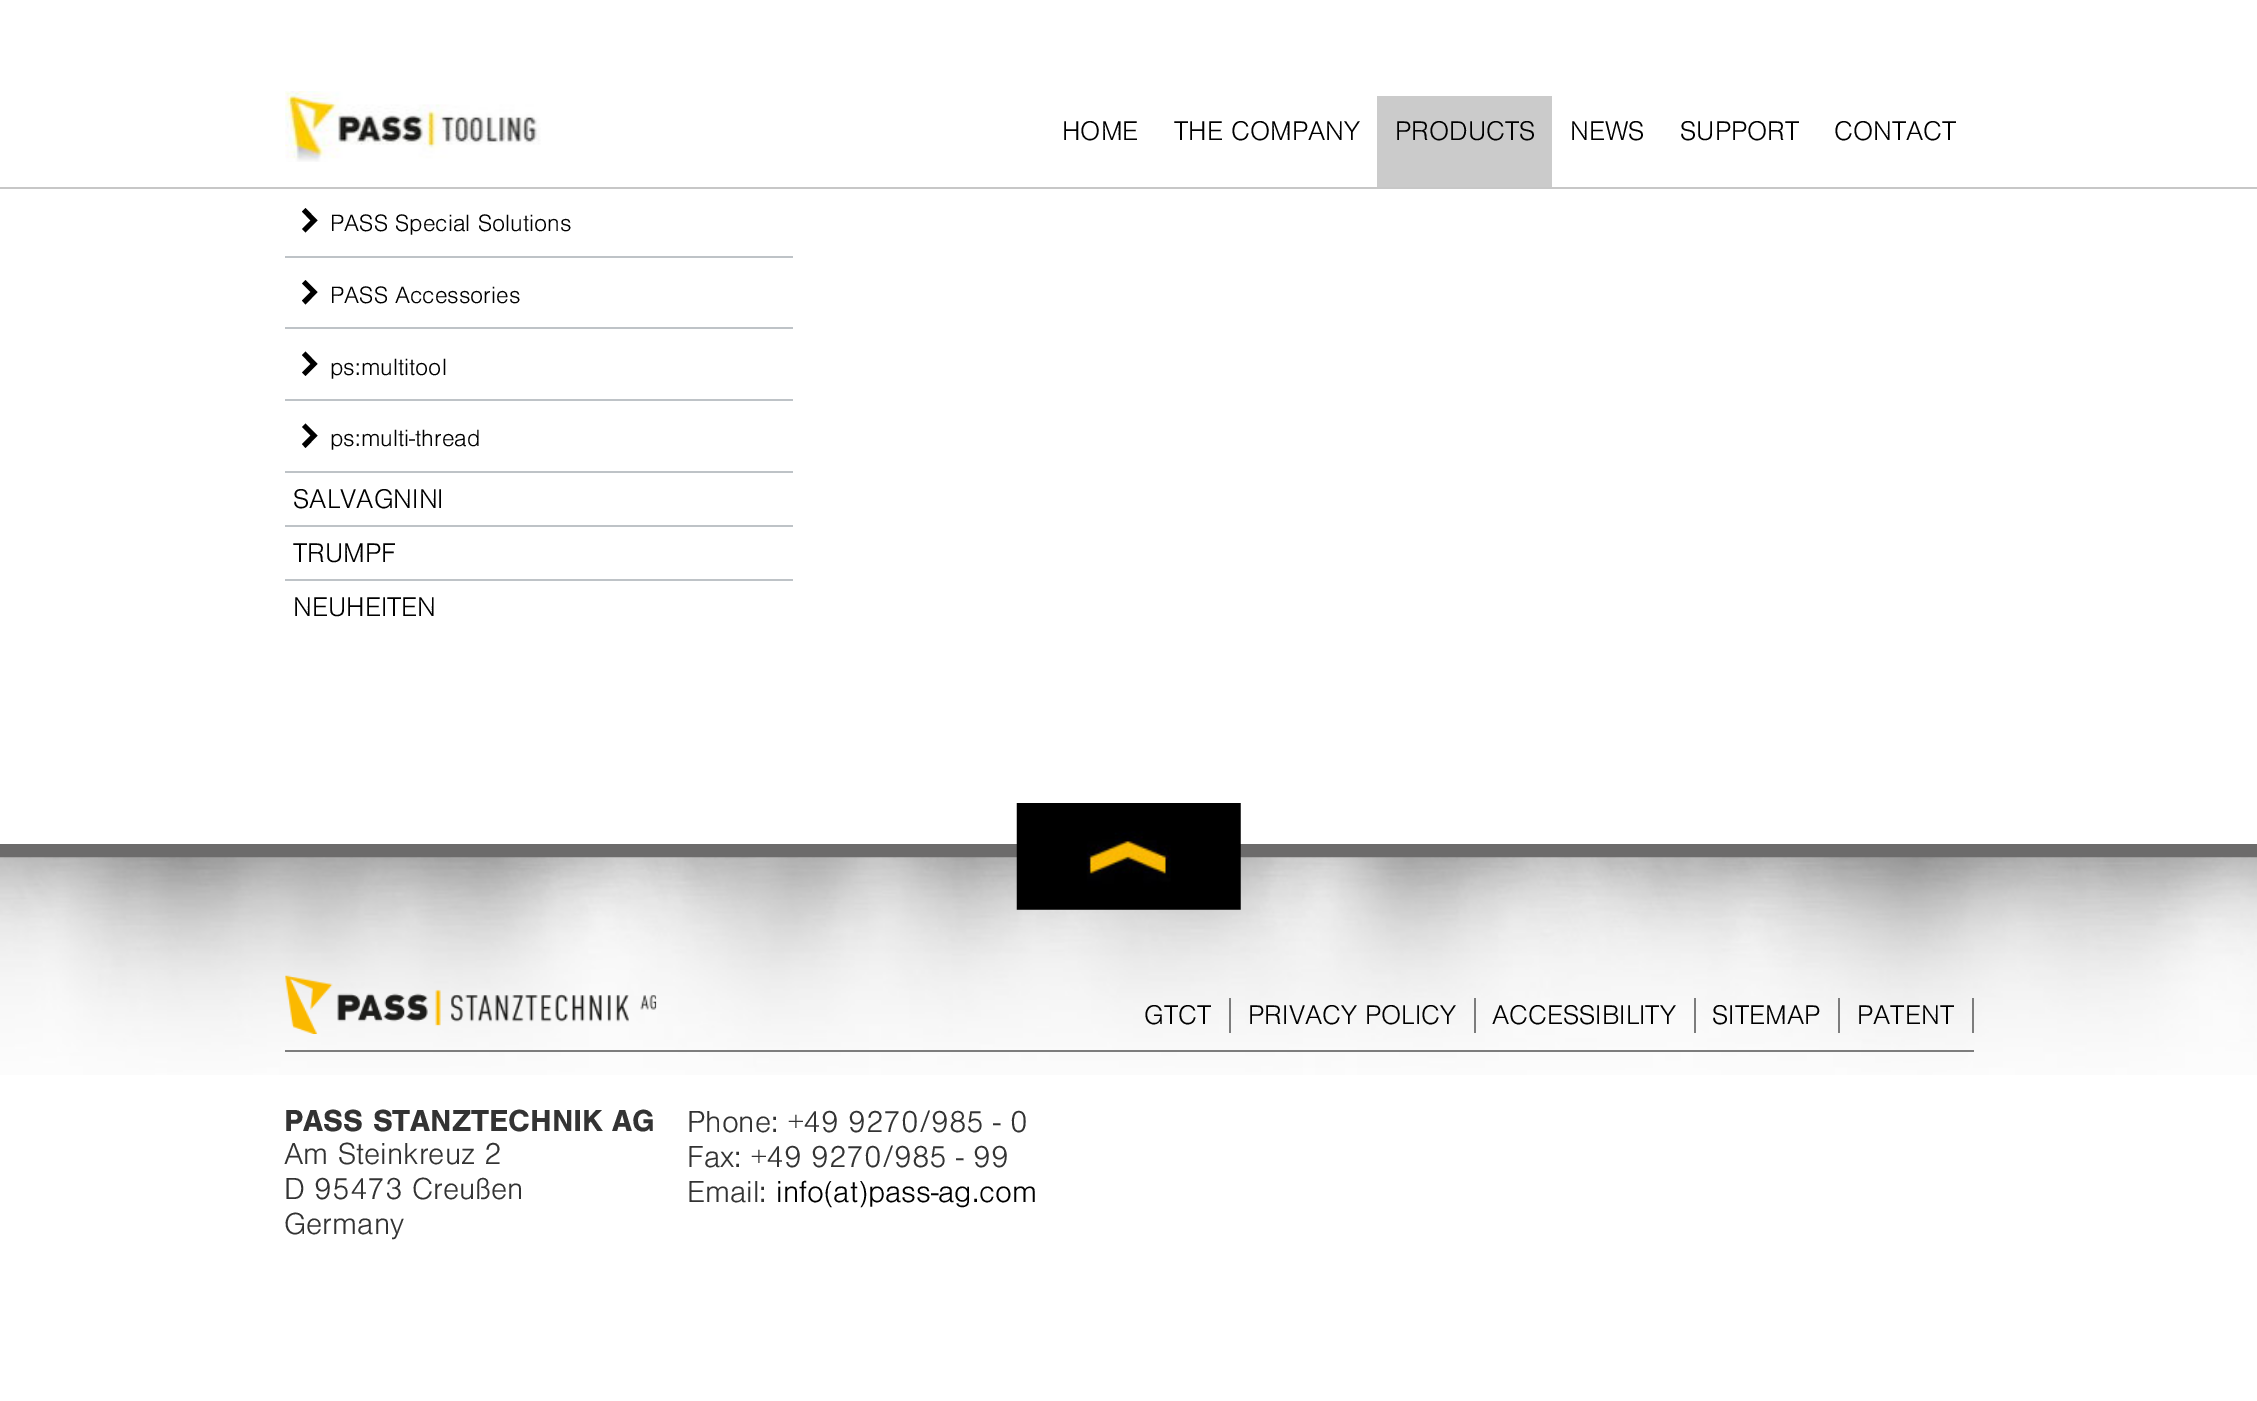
%!PS
<< /PageSize [2257 1401] >> setpagedevice
/picture { 5 dict begin { /h /w /y /x /name } { exch def } forall
  gsave x y translate w h scale
  w h 8 [w 0 0 h 0 0] name (r) file false 3 colorimage grestore end } def
0 1401 translate 1 -1 scale
4 setmiterlimit
1 setgray
0 0 2257 1401 rectfill
0.78 setgray
0 187 2257 2 rectfill
(img1.rgb) 285 91 256 71 picture
/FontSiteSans-Light [28 0 0 -28 0 0] selectfont
0 setgray
1062 140 moveto (HOME) show
1174 140 moveto (THE COMPANY) show
0.796 setgray
1377 96 175 91 rectfill
0 setgray
1395 140 moveto (PRODUCTS) show
1570 140 moveto (NEWS) show
1680 140 moveto (SUPPORT) show
1834 140 moveto (CONTACT) show
0.424 0.42 0.42 setrgbcolor
0 844 2257 14 rectfill
0 setgray
newpath 317.5 220.5 moveto 305.5 208 lineto 302 211.5 lineto 310.5 220.5 lineto 302 229 lineto 305.5 232.5 lineto closepath fill
/FontSiteSans-Light [24.5 0 0 -24.5 0 0] selectfont
330 231 moveto (PASS Special Solutions) show
0.745 0.765 0.78 setrgbcolor
285 256 508 2 rectfill
0 setgray
newpath 317.5 292 moveto 305.5 280 lineto 302 283.5 lineto 310.5 292 lineto 302 300.5 lineto 305.5 304.5 lineto closepath fill
330 303 moveto (PASS Accessories) show
0.745 0.765 0.78 setrgbcolor
285 327 508 2 rectfill
0 setgray
newpath 317.5 364 moveto 305.5 351.5 lineto 302 355 lineto 310.5 364 lineto 302 372.5 lineto 305.5 376 lineto closepath fill
330 375 moveto (ps:multitool) show
0.745 0.765 0.78 setrgbcolor
285 399 508 2 rectfill
0 setgray
newpath 317.5 435.5 moveto 305.5 423.5 lineto 302 427 lineto 310.5 435.5 lineto 302 444 lineto 305.5 448 lineto closepath fill
330 446 moveto (ps:multi-thread) show
0.745 0.765 0.78 setrgbcolor
285 471 508 2 rectfill
/FontSiteSans-Light [28 0 0 -28 0 0] selectfont
0 setgray
293 508 moveto (SALVAGNINI) show
0.745 0.765 0.78 setrgbcolor
285 525 508 2 rectfill
0 setgray
293 562 moveto (TRUMPF) show
0.745 0.765 0.78 setrgbcolor
285 579 508 2 rectfill
0 setgray
293 616 moveto (NEUHEITEN) show
(img2.rgb) 0 857 2257 218 picture
0.49 setgray
285 1050 1689 2 rectfill
(img3.rgb) 1016 803 225 107 picture
(img4.rgb) 285 975 372 59 picture
1229 998 2 35 rectfill
0 setgray
1144 1024 moveto (GTCT) show
0.49 setgray
1474 998 2 35 rectfill
0 setgray
1248 1024 moveto (PRIVACY POLICY) show
0.49 setgray
1694 998 2 35 rectfill
0 setgray
1492 1024 moveto (ACCESSIBILITY) show
0.49 setgray
1838 998 2 35 rectfill
0 setgray
1712 1024 moveto (SITEMAP) show
0.49 setgray
1972 998 2 35 rectfill
0 setgray
1857 1024 moveto (PATENT) show
/FontSiteSans-Bold [31.5 0 0 -31.5 0 0] selectfont
0.2 setgray
284 1131 moveto (PASS STANZTECHNIK AG) show
/FontSiteSans-Light [31.5 0 0 -31.5 0 0] selectfont
284 1164 moveto (Am Steinkreuz 2) show
284 1199 moveto (D 95473 Creußen) show
284 1234 moveto (Germany) show
687 1132 moveto (Phone: +49 9270/985 - 0) show
687 1167 moveto (Fax: +49 9270/985 - 99) show
687 1202 moveto (Email:) show
0 setgray
776 1202 moveto (info\(at\)pass-ag.com) show
showpage
